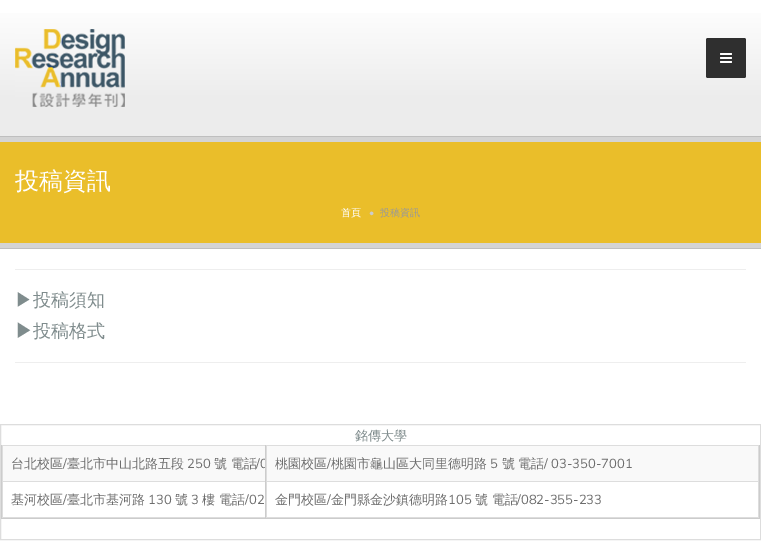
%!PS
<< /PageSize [761 549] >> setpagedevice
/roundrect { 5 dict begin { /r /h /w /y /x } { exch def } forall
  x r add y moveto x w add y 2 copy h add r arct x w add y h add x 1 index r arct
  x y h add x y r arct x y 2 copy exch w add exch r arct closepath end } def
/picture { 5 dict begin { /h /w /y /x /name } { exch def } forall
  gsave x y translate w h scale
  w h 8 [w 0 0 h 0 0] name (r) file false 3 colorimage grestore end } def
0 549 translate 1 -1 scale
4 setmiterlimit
1 setgray
0 0 761 549 rectfill
0.925 setgray
0 100 761 36 rectfill
gsave newpath 0 13 moveto 761 13 lineto 761 100 lineto 0 100 lineto closepath clip newpath
<< /ShadingType 2 /ColorSpace /DeviceRGB /Coords [381 0 381 100] /Extend [true true] /Function << /FunctionType 2 /Domain [0 1] /C0 [1 1 1] /C1 [0.925 0.925 0.925] /N 1 >> >> shfill grestore
(img1.rgb) 15 29 110 78 picture
0.184 setgray
706 38 40 40 2 roundrect fill
(img2.rgb) 720 53 12 10 picture
0.918 0.745 0.165 setrgbcolor
0 142 761 101 rectfill
0.831 setgray
0 137 761 5 rectfill
0 243 761 5 rectfill
0.749 setgray
0 136 761 1 rectfill
/WenQuanYiZenHei-Medium [24 0 0 -24 0 0] selectfont
1 setgray
15 189 moveto (投稿資訊) show
/WenQuanYiZenHei-Medium [10 0 0 -10 0 0] selectfont
341 216 moveto (首頁) show
/Muli-Regular [10 0 0 -10 0 0] selectfont
0.8 setgray
369 216 moveto (•) show
/WenQuanYiZenHei-Medium [10 0 0 -10 0 0] selectfont
0.6 setgray
380 216 moveto (投稿資訊) show
0.749 setgray
0 248 761 1 rectfill
0.933 setgray
15 269 731 1 rectfill
/WenQuanYiZenHei-Medium [18 0 0 -18 0 0] selectfont
0.498 0.549 0.553 setrgbcolor
15 306 moveto (▶投稿須知) show
/WenQuanYiZenHei-Bold [18 0 0 -18 0 0] selectfont
15 337 moveto (▶) show
/WenQuanYiZenHei-Medium [18 0 0 -18 0 0] selectfont
33 337 moveto (投稿格式) show
0.933 setgray
15 362 731 1 rectfill
0.867 setgray
0.5 424.5 760 115 rectstroke
/WenQuanYiZenHei-Medium [13 0 0 -13 0 0] selectfont
0.498 0.549 0.553 setrgbcolor
355 440 moveto (銘傳大學) show
0.8 setgray
759 445 1 74 rectfill
1 518 759 1 rectfill
265 445 1 73 rectfill
1 445 1 73 rectfill
0.867 setgray
2 445 263 1 rectfill
0.976 setgray
3 446 262 35 rectfill
0.427 setgray
11 468 moveto (台北校區 臺北市中山北路五段) show
214 468 moveto (號 電話) show
/Muli-Regular [13 0 0 -13 0 0] selectfont
63 468 moveto (/) show
187 468 moveto (250) show
gsave
2 445 263 73 rectclip
256 468 moveto (/0) show
grestore
0.867 setgray
2 481 263 1 rectfill
2 517 263 1 rectfill
2 445 1 73 rectfill
/WenQuanYiZenHei-Medium [13 0 0 -13 0 0] selectfont
0.427 setgray
11 504 moveto (基河校區 臺北市基河路) show
175 504 moveto (號) show
202 504 moveto (樓 電話) show
/Muli-Regular [13 0 0 -13 0 0] selectfont
63 504 moveto (/) show
148 504 moveto (130) show
191 504 moveto (3) show
245 504 moveto (/02) show
0.867 setgray
266 445 493 1 rectfill
758 445 1 73 rectfill
266 517 493 1 rectfill
266 445 1 73 rectfill
0.976 setgray
267 446 491 35 rectfill
/WenQuanYiZenHei-Medium [13 0 0 -13 0 0] selectfont
0.427 setgray
275 468 moveto (桃園校區) show
/Muli-Regular [13 0 0 -13 0 0] selectfont
327 468 moveto (/) show
/WenQuanYiZenHei-Medium [13 0 0 -13 0 0] selectfont
331 468 moveto (桃園市龜山區大同里德明路) show
/Muli-Regular [13 0 0 -13 0 0] selectfont
490 468 moveto (5) show
/WenQuanYiZenHei-Medium [13 0 0 -13 0 0] selectfont
502 468 moveto (號) show
518 468 moveto (電話) show
/Muli-Regular [13 0 0 -13 0 0] selectfont
544 468 moveto (/ 03-350-7001) show
0.867 setgray
266 481 493 1 rectfill
/WenQuanYiZenHei-Medium [13 0 0 -13 0 0] selectfont
0.427 setgray
275 504 moveto (金門校區) show
/Muli-Regular [13 0 0 -13 0 0] selectfont
327 504 moveto (/) show
/WenQuanYiZenHei-Medium [13 0 0 -13 0 0] selectfont
331 504 moveto (金門縣金沙鎮德明路) show
/Muli-Regular [13 0 0 -13 0 0] selectfont
448 504 moveto (105) show
/WenQuanYiZenHei-Medium [13 0 0 -13 0 0] selectfont
475 504 moveto (號 電話) show
/Muli-Regular [13 0 0 -13 0 0] selectfont
517 504 moveto (/082-355-233) show
showpage
